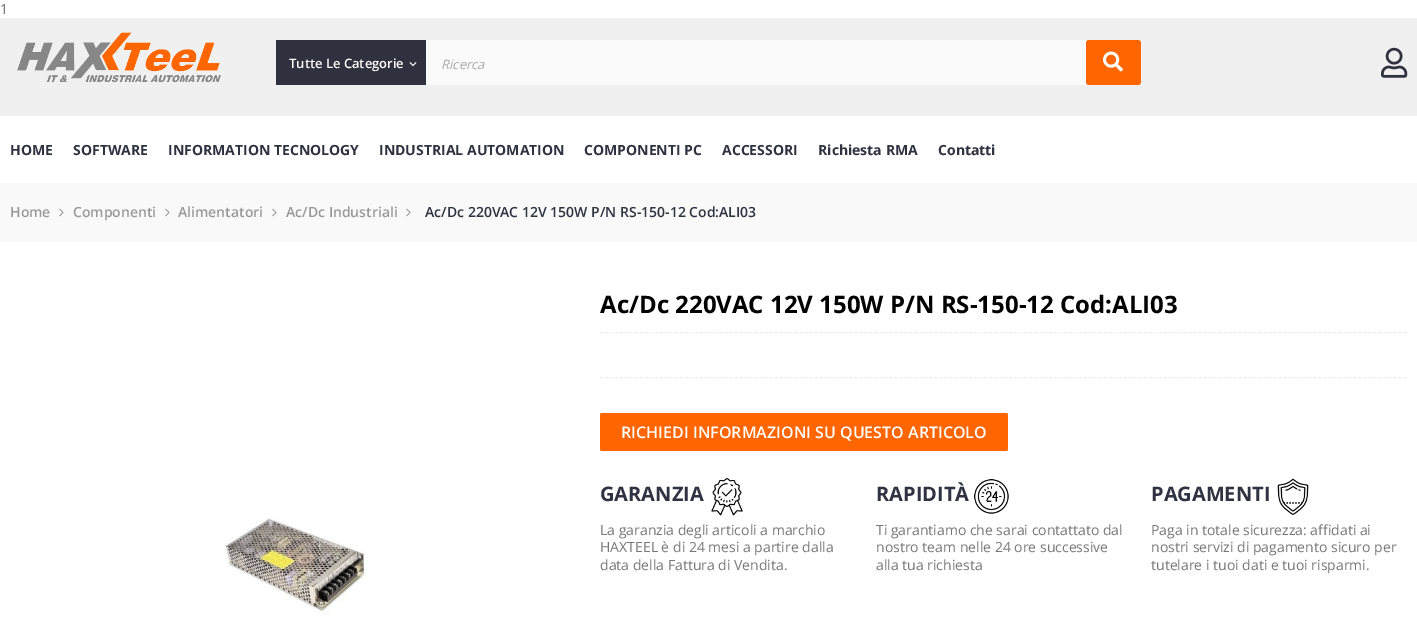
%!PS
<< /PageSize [1417 626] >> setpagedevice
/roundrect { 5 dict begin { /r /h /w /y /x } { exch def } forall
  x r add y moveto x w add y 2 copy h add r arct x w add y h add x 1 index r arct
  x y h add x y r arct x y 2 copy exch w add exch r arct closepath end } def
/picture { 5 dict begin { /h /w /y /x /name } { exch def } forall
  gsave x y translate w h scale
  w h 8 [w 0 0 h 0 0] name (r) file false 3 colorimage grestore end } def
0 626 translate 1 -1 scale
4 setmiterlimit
1 setgray
0 0 1417 626 rectfill
/OpenSans-Regular [14 0 0 -14 0 0] selectfont
0.467 setgray
0 14 moveto (1) show
0.941 setgray
0 18 1417 98 rectfill
(img1.rgb) 17 32 204 51 picture
0.188 0.192 0.247 setrgbcolor
276 40 150 45 rectfill
/OpenSans-SemiBold [13 0 0 -13 0 0] selectfont
1 setgray
289 68 moveto (Tutte Le Categorie) show
(img2.rgb) 409 62 8 5 picture
0.98 setgray
426 40 715 45 rectfill
/OpenSans-Italic [13 0 0 -13 0 0] selectfont
0.667 setgray
441 69 moveto (Ricerca) show
1 0.4 0.004 setrgbcolor
1086 40 55 45 3 roundrect fill
(img3.rgb) 1103 51 20 21 picture
(img4.rgb) 1381 47 27 31 picture
/OpenSans-Bold [14 0 0 -14 0 0] selectfont
0.184 0.196 0.255 setrgbcolor
10 155 moveto (HOME) show
73 155 moveto (SOFTWARE) show
168 155 moveto (INFORMATION TECNOLOGY) show
379 155 moveto (INDUSTRIAL AUTOMATION) show
584 155 moveto (COMPONENTI PC) show
722 155 moveto (ACCESSORI) show
818 155 moveto (Richiesta RMA) show
938 155 moveto (Contatti) show
0.976 setgray
0 183 1417 59 rectfill
/OpenSans-SemiBold [14 0 0 -14 0 0] selectfont
0.6 setgray
10 217 moveto (Home) show
(img5.rgb) 59 208 5 9 picture
73 217 moveto (Componenti) show
(img5.rgb) 165 208 5 9 picture
178 217 moveto (Alimentatori) show
(img5.rgb) 272 208 5 9 picture
286 217 moveto (Ac/Dc Industriali) show
(img5.rgb) 406 208 5 9 picture
0.184 0.196 0.255 setrgbcolor
425 217 moveto (Ac/Dc 220VAC 12V 150W P/N RS-150-12 Cod:ALI03) show
(img6.rgb) 223 517 143 98 picture
/OpenSans-Bold [24 0 0 -24 0 0] selectfont
0 setgray
600 313 moveto (Ac/Dc 220VAC 12V 150W P/N RS-150-12 Cod:ALI03) show
0.925 0.929 0.945 setrgbcolor
[3 1.99] 0 setdash
newpath 600 332.5 moveto 1407 332.5 lineto stroke
newpath 600 377.5 moveto 1407 377.5 lineto stroke
1 0.4 0.004 setrgbcolor
600 413 408 38 2 roundrect fill
/OpenSans-SemiBold [16 0 0 -16 0 0] selectfont
1 setgray
621 438 moveto (RICHIEDI INFORMAZIONI SU QUESTO ARTICOLO) show
/OpenSans-Bold [20 0 0 -20 0 0] selectfont
0.184 0.196 0.255 setrgbcolor
600 501 moveto (GARANZIA) show
(img7.rgb) 711 478 32 38 picture
/OpenSans-Regular [14 0 0 -14 0 0] selectfont
0.467 setgray
600 535 moveto (La garanzia degli articoli a marchio) show
600 552 moveto (HAXTEEL è di 24 mesi a partire dalla) show
600 570 moveto (data della Fattura di Vendita.) show
/OpenSans-Bold [20 0 0 -20 0 0] selectfont
0.184 0.196 0.255 setrgbcolor
876 501 moveto (RAPIDITÀ) show
(img8.rgb) 974 479 35 35 picture
/OpenSans-Regular [14 0 0 -14 0 0] selectfont
0.467 setgray
876 535 moveto (Ti garantiamo che sarai contattato dal) show
876 552 moveto (nostro team nelle 24 ore successive) show
876 570 moveto (alla tua richiesta) show
/OpenSans-Bold [20 0 0 -20 0 0] selectfont
0.184 0.196 0.255 setrgbcolor
1151 501 moveto (PAGAMENTI) show
(img9.rgb) 1277 478 32 37 picture
/OpenSans-Regular [14 0 0 -14 0 0] selectfont
0.467 setgray
1151 535 moveto (Paga in totale sicurezza: affidati ai) show
1151 552 moveto (nostri servizi di pagamento sicuro per) show
1151 570 moveto (tutelare i tuoi dati e tuoi risparmi.) show
showpage
